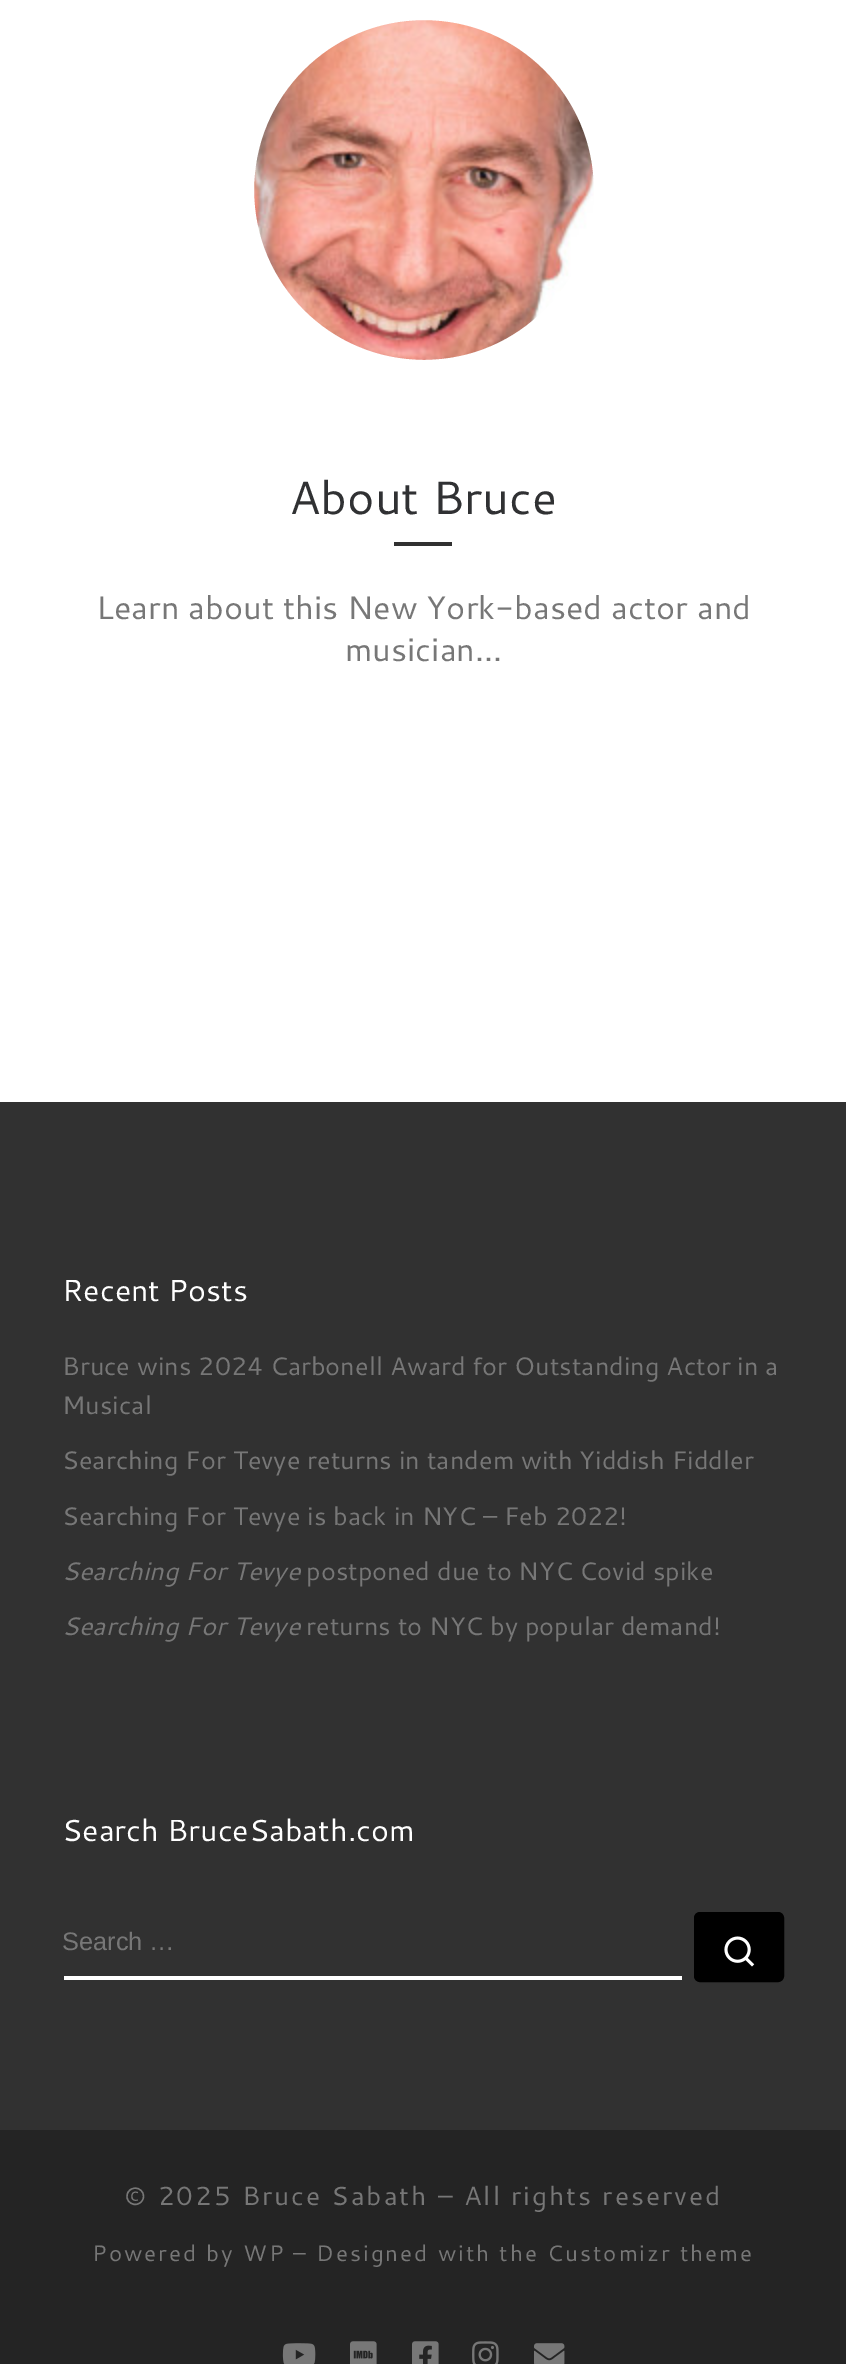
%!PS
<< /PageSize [846 2364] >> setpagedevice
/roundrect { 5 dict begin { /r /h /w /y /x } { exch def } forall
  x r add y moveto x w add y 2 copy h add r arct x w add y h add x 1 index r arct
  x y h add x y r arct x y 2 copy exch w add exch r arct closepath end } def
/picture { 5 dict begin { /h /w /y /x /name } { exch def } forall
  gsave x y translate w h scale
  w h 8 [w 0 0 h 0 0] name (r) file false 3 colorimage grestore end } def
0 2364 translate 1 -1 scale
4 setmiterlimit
1 setgray
0 0 846 2364 rectfill
(img1.rgb) 254 20 340 340 picture
/Cantarell-Regular [32.4 0 0 -32.4 0 0] selectfont
0.467 setgray
96 619 moveto (Learn about this New York-based actor and) show
345 661 moveto (musician...) show
gsave
154 0 540 440 rectclip
1 setgray
300 setlinewidth
newpath 424 190 320 0 360 arc closepath stroke
grestore
/Cantarell-Regular [46.5 0 0 -46.5 0 0] selectfont
0.188 0.192 0.2 setrgbcolor
289 514 moveto (About Bruce) show
0.192 setgray
394 542 58 4 rectfill
0 1102 846 1028 rectfill
/Cantarell-Regular [30.4 0 0 -30.4 0 0] selectfont
1 setgray
62 1301 moveto (Recent Posts) show
/Cantarell-Regular [25.35 0 0 -25.35 0 0] selectfont
0.467 setgray
62 1375 moveto (Bruce wins 2024 Carbonell Award for Outstanding Actor in a) show
62 1414 moveto (Musical) show
62 1469 moveto (Searching For Tevye returns in tandem with Yiddish Fiddler) show
62 1525 moveto (Searching For Tevye is back in NYC – Feb 2022!) show
/Cantarell-Italic [25.35 0 0 -25.35 0 0] selectfont
62 1580 moveto (Searching For Tevye) show
/Cantarell-Regular [25.35 0 0 -25.35 0 0] selectfont
306 1580 moveto (postponed due to NYC Covid spike) show
/Cantarell-Italic [25.35 0 0 -25.35 0 0] selectfont
62 1635 moveto (Searching For Tevye) show
/Cantarell-Regular [25.35 0 0 -25.35 0 0] selectfont
306 1635 moveto (returns to NYC by popular demand!) show
/Cantarell-Regular [30.4 0 0 -30.4 0 0] selectfont
1 setgray
62 1841 moveto (Search BruceSabath.com) show
64 1976 618 4 rectfill
/LiberationSans-Regular [25.35 0 0 -25.35 0 0] selectfont
0.467 setgray
62 1950 moveto (Search …) show
0 setgray
696 1914 86 66 4 roundrect gsave fill grestore
4 setlinewidth
stroke
(img2.rgb) 724 1936 31 31 picture
0.141 setgray
0 2130 846 234 rectfill
/Cantarell-Regular [26.25 0 0 -26.25 0 0] selectfont
0.467 setgray
124 2205 moveto 2 0 (© 2025 Bruce Sabath – All rights reserved) ashow
/Cantarell-Regular [22.4 0 0 -22.4 0 0] selectfont
92 2261 moveto 2 0 (Powered by WP – Designed with the Customizr theme) ashow
(img3.rgb) 282 2343 34 21 picture
(img4.rgb) 350 2341 27 23 picture
(img5.rgb) 412 2341 27 23 picture
(img6.rgb) 472 2341 27 23 picture
(img7.rgb) 534 2343 31 21 picture
showpage
